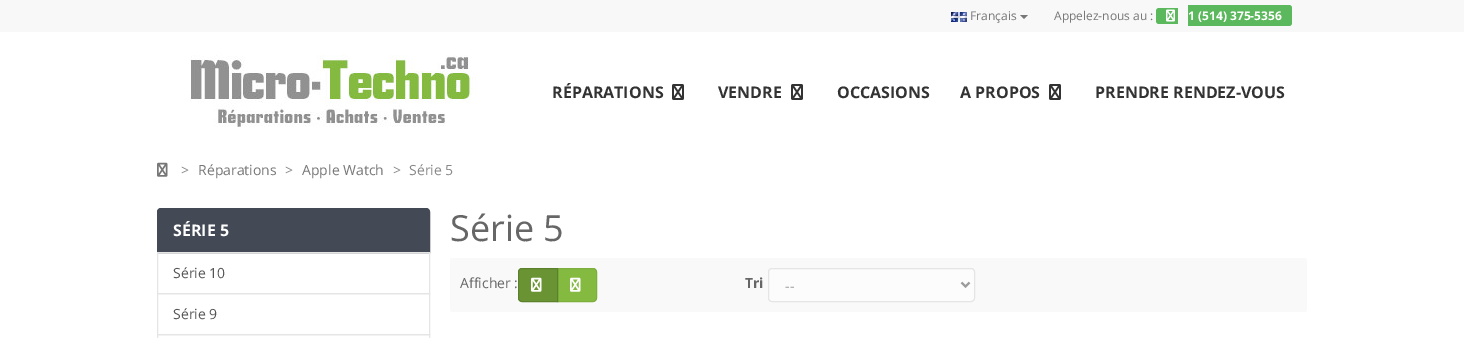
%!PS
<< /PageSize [1464 338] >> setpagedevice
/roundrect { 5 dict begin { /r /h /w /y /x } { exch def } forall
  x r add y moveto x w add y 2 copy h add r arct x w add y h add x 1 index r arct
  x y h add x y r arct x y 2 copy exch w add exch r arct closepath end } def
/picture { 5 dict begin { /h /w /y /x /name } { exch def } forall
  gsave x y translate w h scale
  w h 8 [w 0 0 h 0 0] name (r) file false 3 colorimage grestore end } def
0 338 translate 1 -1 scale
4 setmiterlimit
1 setgray
0 0 1464 338 rectfill
0.973 setgray
0 0 1464 32 rectfill
(img1.rgb) 951 12 16 10 picture
/OpenSans-Regular [12 0 0 -12 0 0] selectfont
0.467 setgray
970 20 moveto (Français) show
newpath 1020 15 moveto 1028 15 lineto 1024 19 lineto closepath fill
1054 20 moveto (Appelez-nous au :) show
0.361 0.722 0.361 setrgbcolor
newpath 1159 8 moveto 1178 8 lineto 1178 24 lineto 1159 24 lineto 1157.5 24 1156 22.5 1156 21 curveto 1156 11 lineto 1156 9.5 1157.5 8 1159 8 curveto closepath fill
newpath 1188 5 moveto 1289 5 lineto 1290.5 5 1292 6.5 1292 8 curveto 1292 23 lineto 1292 24.5 1290.5 26 1289 26 curveto 1188 26 lineto closepath fill
(img2.rgb) 1166 9 9 13 picture
/OpenSans-Bold [12 0 0 -12 0 0] selectfont
1 setgray
1188 20 moveto (1 \(514\) 375-5356) show
(img3.rgb) 190 55 286 72 picture
/OpenSans-Bold [16 0 0 -16 0 0] selectfont
0.2 setgray
552 98 moveto (RÉPARATIONS) show
(img4.rgb) 672 84 12 16 picture
718 98 moveto (VENDRE) show
(img4.rgb) 791 84 12 16 picture
837 98 moveto (OCCASIONS) show
960 98 moveto (A PROPOS) show
(img4.rgb) 1049 84 12 16 picture
1095 98 moveto (PRENDRE RENDEZ-VOUS) show
(img5.rgb) 157 162 11 15 picture
/OpenSans-Regular [14 0 0 -14 0 0] selectfont
0.533 setgray
181 175 moveto (>) show
0.467 setgray
198 175 moveto (Réparations) show
0.533 setgray
285 175 moveto (>) show
0.467 setgray
302 175 moveto (Apple Watch) show
0.533 setgray
393 175 moveto (>) show
409 175 moveto (Série 5) show
0.263 0.286 0.333 setrgbcolor
newpath 161 208.5 moveto 426 208.5 lineto 428 208.5 429.5 210 429.5 212 curveto 429.5 252.5 lineto 157.5 252.5 lineto 157.5 212 lineto 157.5 210 159 208.5 161 208.5 curveto closepath gsave fill grestore
stroke
/OpenSans-Bold [16 0 0 -16 0 0] selectfont
1 setgray
173 236 moveto (SÉRIE 5) show
0.898 setgray
157.5 252.5 272 41 rectstroke
/OpenSans-Regular [14 0 0 -14 0 0] selectfont
0.333 setgray
173 278 moveto (Série 10) show
0.898 setgray
157.5 293.5 272 41 rectstroke
0.333 setgray
173 319 moveto (Série 9) show
0.898 setgray
157.5 334.5 272 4 rectstroke
/OpenSans-Regular [36 0 0 -36 0 0] selectfont
0.4 setgray
450 241 moveto (Série 5) show
0.976 setgray
450 258 857 54 3 roundrect fill
/OpenSans-Regular [14 0 0 -14 0 0] selectfont
0.4 setgray
460 288 moveto (Afficher :) show
0.522 0.729 0.255 setrgbcolor
newpath 557.5 268.5 moveto 593 268.5 lineto 595 268.5 596.5 270 596.5 272 curveto 596.5 298 lineto 596.5 300 595 301.5 593 301.5 curveto 557.5 301.5 lineto closepath gsave fill grestore
0.49 0.686 0.239 setrgbcolor
stroke
0.416 0.58 0.204 setrgbcolor
newpath 522 268.5 moveto 557.5 268.5 lineto 557.5 301.5 lineto 522 301.5 lineto 520 301.5 518.5 300 518.5 298 curveto 518.5 272 lineto 518.5 270 520 268.5 522 268.5 curveto closepath gsave fill grestore
0.361 0.506 0.176 setrgbcolor
stroke
(img6.rgb) 531 277 11 15 picture
(img7.rgb) 570 277 11 15 picture
/OpenSans-Bold [14 0 0 -14 0 0] selectfont
0.4 setgray
745 288 moveto (Tri) show
0.988 setgray
768.5 268.5 206 33 3.5 roundrect gsave fill grestore
0.898 setgray
stroke
0.608 setgray
2 setlinewidth
newpath 961.5 282.5 moveto 965.5 286.5 lineto 969.5 282.5 lineto stroke
/OpenSans-Regular [14 0 0 -14 0 0] selectfont
785 291 moveto (--) show
showpage
